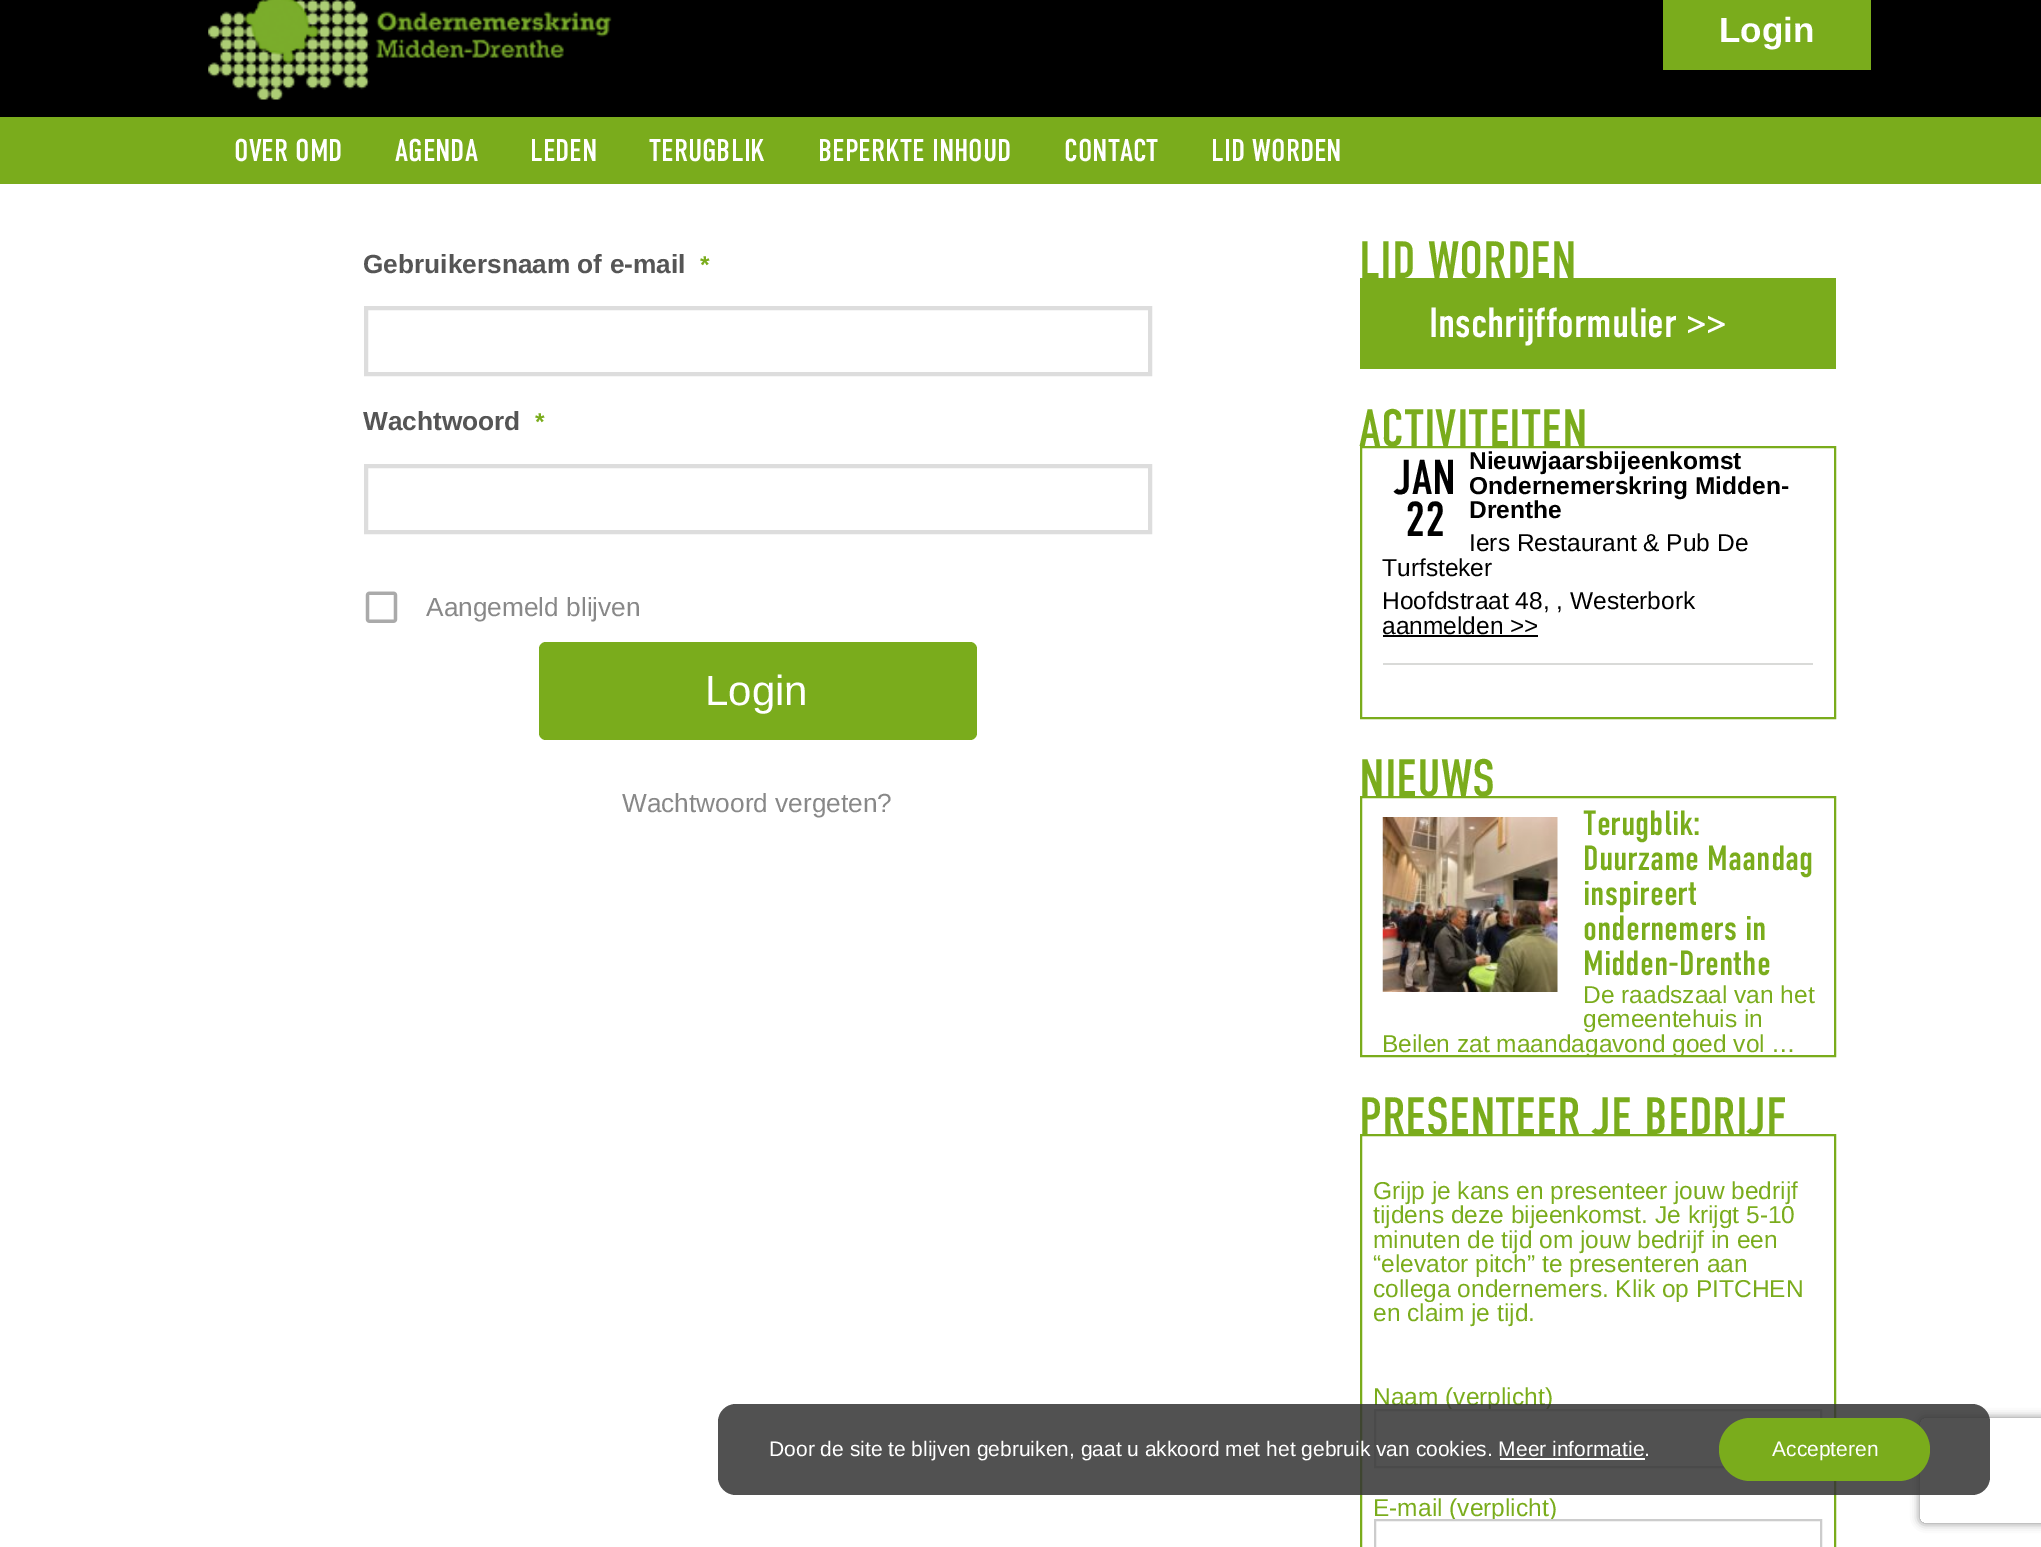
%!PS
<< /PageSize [2041 1547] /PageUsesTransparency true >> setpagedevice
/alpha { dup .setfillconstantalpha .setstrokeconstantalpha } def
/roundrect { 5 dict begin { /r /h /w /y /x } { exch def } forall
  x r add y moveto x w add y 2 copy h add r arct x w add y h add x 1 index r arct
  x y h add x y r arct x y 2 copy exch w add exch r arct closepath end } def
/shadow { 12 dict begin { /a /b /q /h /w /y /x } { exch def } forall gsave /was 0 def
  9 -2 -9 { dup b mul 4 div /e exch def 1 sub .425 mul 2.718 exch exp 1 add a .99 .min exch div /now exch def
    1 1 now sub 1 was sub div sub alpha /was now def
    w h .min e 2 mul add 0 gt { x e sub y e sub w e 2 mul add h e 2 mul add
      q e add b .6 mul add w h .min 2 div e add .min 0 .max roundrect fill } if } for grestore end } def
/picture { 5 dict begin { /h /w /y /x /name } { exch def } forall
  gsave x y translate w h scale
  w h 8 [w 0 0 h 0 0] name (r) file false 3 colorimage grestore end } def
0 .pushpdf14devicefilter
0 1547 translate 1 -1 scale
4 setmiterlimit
1 setgray
0 0 2041 1547 rectfill
0 setgray
0 0 2041 117 rectfill
(img1.rgb) 208 0 404 100 picture
0.478 0.675 0.11 setrgbcolor
1663 0 208 70 rectfill
/LiberationSans-Bold [35 0 0 -35 0 0] selectfont
1 setgray
1719 42 moveto (Login) show
0.478 0.675 0.11 setrgbcolor
0 117 2041 67 rectfill
/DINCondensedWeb-Regular [31.5 0 0 -31.5 0 0] selectfont
1 setgray
234 161 moveto (OVER OMD) show
395 161 moveto (AGENDA) show
530 161 moveto (LEDEN) show
649 161 moveto (TERUGBLIK) show
818 161 moveto (BEPERKTE INHOUD) show
1064 161 moveto (CONTACT) show
1211 161 moveto (LID WORDEN) show
/LiberationSans-Bold [26.25 0 0 -26.25 0 0] selectfont
0.333 setgray
363 273 moveto (Gebruikersnaam of e-mail) show
/LiberationSans-Bold [24.5 0 0 -24.5 0 0] selectfont
0.478 0.675 0.11 setrgbcolor
700 273 moveto (*) show
0.867 setgray
4 setlinewidth
366 308 784 66 rectstroke
/LiberationSans-Bold [26.25 0 0 -26.25 0 0] selectfont
0.333 setgray
363 430 moveto (Wachtwoord) show
/LiberationSans-Bold [24.5 0 0 -24.5 0 0] selectfont
0.478 0.675 0.11 setrgbcolor
535 430 moveto (*) show
0.867 setgray
366 466 784 66 rectstroke
(img2.rgb) 365 591 33 32 picture
/LiberationSans-Regular [26.25 0 0 -26.25 0 0] selectfont
0.533 setgray
426 616 moveto (Aangemeld blijven) show
0.478 0.675 0.11 setrgbcolor
539 642 438 98 7 roundrect fill
/LiberationSans-Regular [42 0 0 -42 0 0] selectfont
1 setgray
705 705 moveto (Login) show
/LiberationSans-Regular [26.25 0 0 -26.25 0 0] selectfont
0.533 setgray
622 812 moveto (Wachtwoord vergeten?) show
0.478 0.675 0.11 setrgbcolor
1360 278 476 91 rectfill
/DINCondensedWeb-Regular [52.5 0 0 -52.5 0 0] selectfont
1359 278 moveto (LID WORDEN) show
/DINCondensedWeb-Regular [42 0 0 -42 0 0] selectfont
1 setgray
1429 337 moveto (Inschrijfformulier >>) show
0.478 0.675 0.11 setrgbcolor
2 setlinewidth
1361 447 474 271 rectstroke
/DINCondensedWeb-Regular [52.5 0 0 -52.5 0 0] selectfont
1359 446 moveto (ACTIVITEITEN) show
0.851 0.855 0.847 setrgbcolor
1383 663 430 2 rectfill
/DINCondensedWeb-Regular [49 0 0 -49 0 0] selectfont
0 setgray
1394 494 moveto (JAN) show
1405 536 moveto (22) show
/LiberationSans-Bold [24.5 0 0 -24.5 0 0] selectfont
1469 469 moveto (Nieuwjaarsbijeenkomst) show
1469 494 moveto (Ondernemerskring Midden-) show
1469 518 moveto (Drenthe) show
/LiberationSans-Regular [24.5 0 0 -24.5 0 0] selectfont
1469 551 moveto (Iers Restaurant & Pub De) show
1382 576 moveto (Turfsteker) show
1382 609 moveto (Hoofdstraat 48, , Westerbork) show
gsave
1383 448 430 215 rectclip
1382 634 moveto (aanmelden >>) show
grestore
1383 635 155 2 rectfill
0.478 0.675 0.11 setrgbcolor
1361 797 474 259 rectstroke
/DINCondensedWeb-Regular [52.5 0 0 -52.5 0 0] selectfont
1359 796 moveto (NIEUWS) show
(img3.rgb) 1382 817 176 175 picture
/DINCondensedWeb-Regular [35 0 0 -35 0 0] selectfont
1583 835 moveto (Terugblik:) show
1583 870 moveto (Duurzame Maandag) show
1583 905 moveto (inspireert) show
1583 940 moveto (ondernemers in) show
1583 975 moveto (Midden-Drenthe) show
/LiberationSans-Regular [24.5 0 0 -24.5 0 0] selectfont
1583 1003 moveto (De raadszaal van het) show
1583 1027 moveto (gemeentehuis in) show
gsave
1383 807 439 248 rectclip
1382 1052 moveto (Beilen zat maandagavond goed vol) show
grestore
1771 1052 moveto (…) show
1361 1135 474 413 rectstroke
/DINCondensedWeb-Regular [52.5 0 0 -52.5 0 0] selectfont
1359 1134 moveto (PRESENTEER JE BEDRIJF) show
/LiberationSans-Regular [24.5 0 0 -24.5 0 0] selectfont
1373 1199 moveto (Grijp je kans en presenteer jouw bedrijf) show
1373 1223 moveto (tijdens deze bijeenkomst. Je krijgt 5-10) show
1373 1248 moveto (minuten de tijd om jouw bedrijf in een) show
1373 1272 moveto (“elevator pitch” te presenteren aan) show
1373 1297 moveto (collega ondernemers. Klik op PITCHEN) show
1373 1321 moveto (en claim je tijd.) show
1373 1405 moveto (Naam \(verplicht\)) show
0.8 setgray
1375 1410 446 57 rectstroke
0.478 0.675 0.11 setrgbcolor
1373 1516 moveto (E-mail \(verplicht\)) show
1 setgray
1455 1521 96 1 rectfill
0.8 setgray
1375 1520 446 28 rectstroke
gsave
newpath 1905 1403 moveto 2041 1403 lineto 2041 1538 lineto 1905 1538 lineto closepath 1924 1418 moveto 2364 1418 lineto 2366 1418 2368 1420 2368 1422 curveto 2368 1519 lineto 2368 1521 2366 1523 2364 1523 curveto 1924 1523 lineto 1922 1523 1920 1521 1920 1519 curveto 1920 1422 lineto 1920 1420 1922 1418 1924 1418 curveto closepath eoclip newpath
0.502 setgray
1920 1418 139 105 4 4.5 1 shadow
grestore
0.85 alpha
0.2 setgray
718 1404 1272 91 18 roundrect fill
/LiberationSans-Regular [21 0 0 -21 0 0] selectfont
1 alpha
1 setgray
769 1456 moveto (Door de site te blijven gebruiken, gaat u akkoord met het gebruik van cookies. Meer informatie.) show
1500 1458 145 2 rectfill
0.478 0.675 0.11 setrgbcolor
1719 1418 211 63 31.5 roundrect fill
1 setgray
1772 1456 moveto (Accepteren) show
.poppdf14devicefilter showpage
